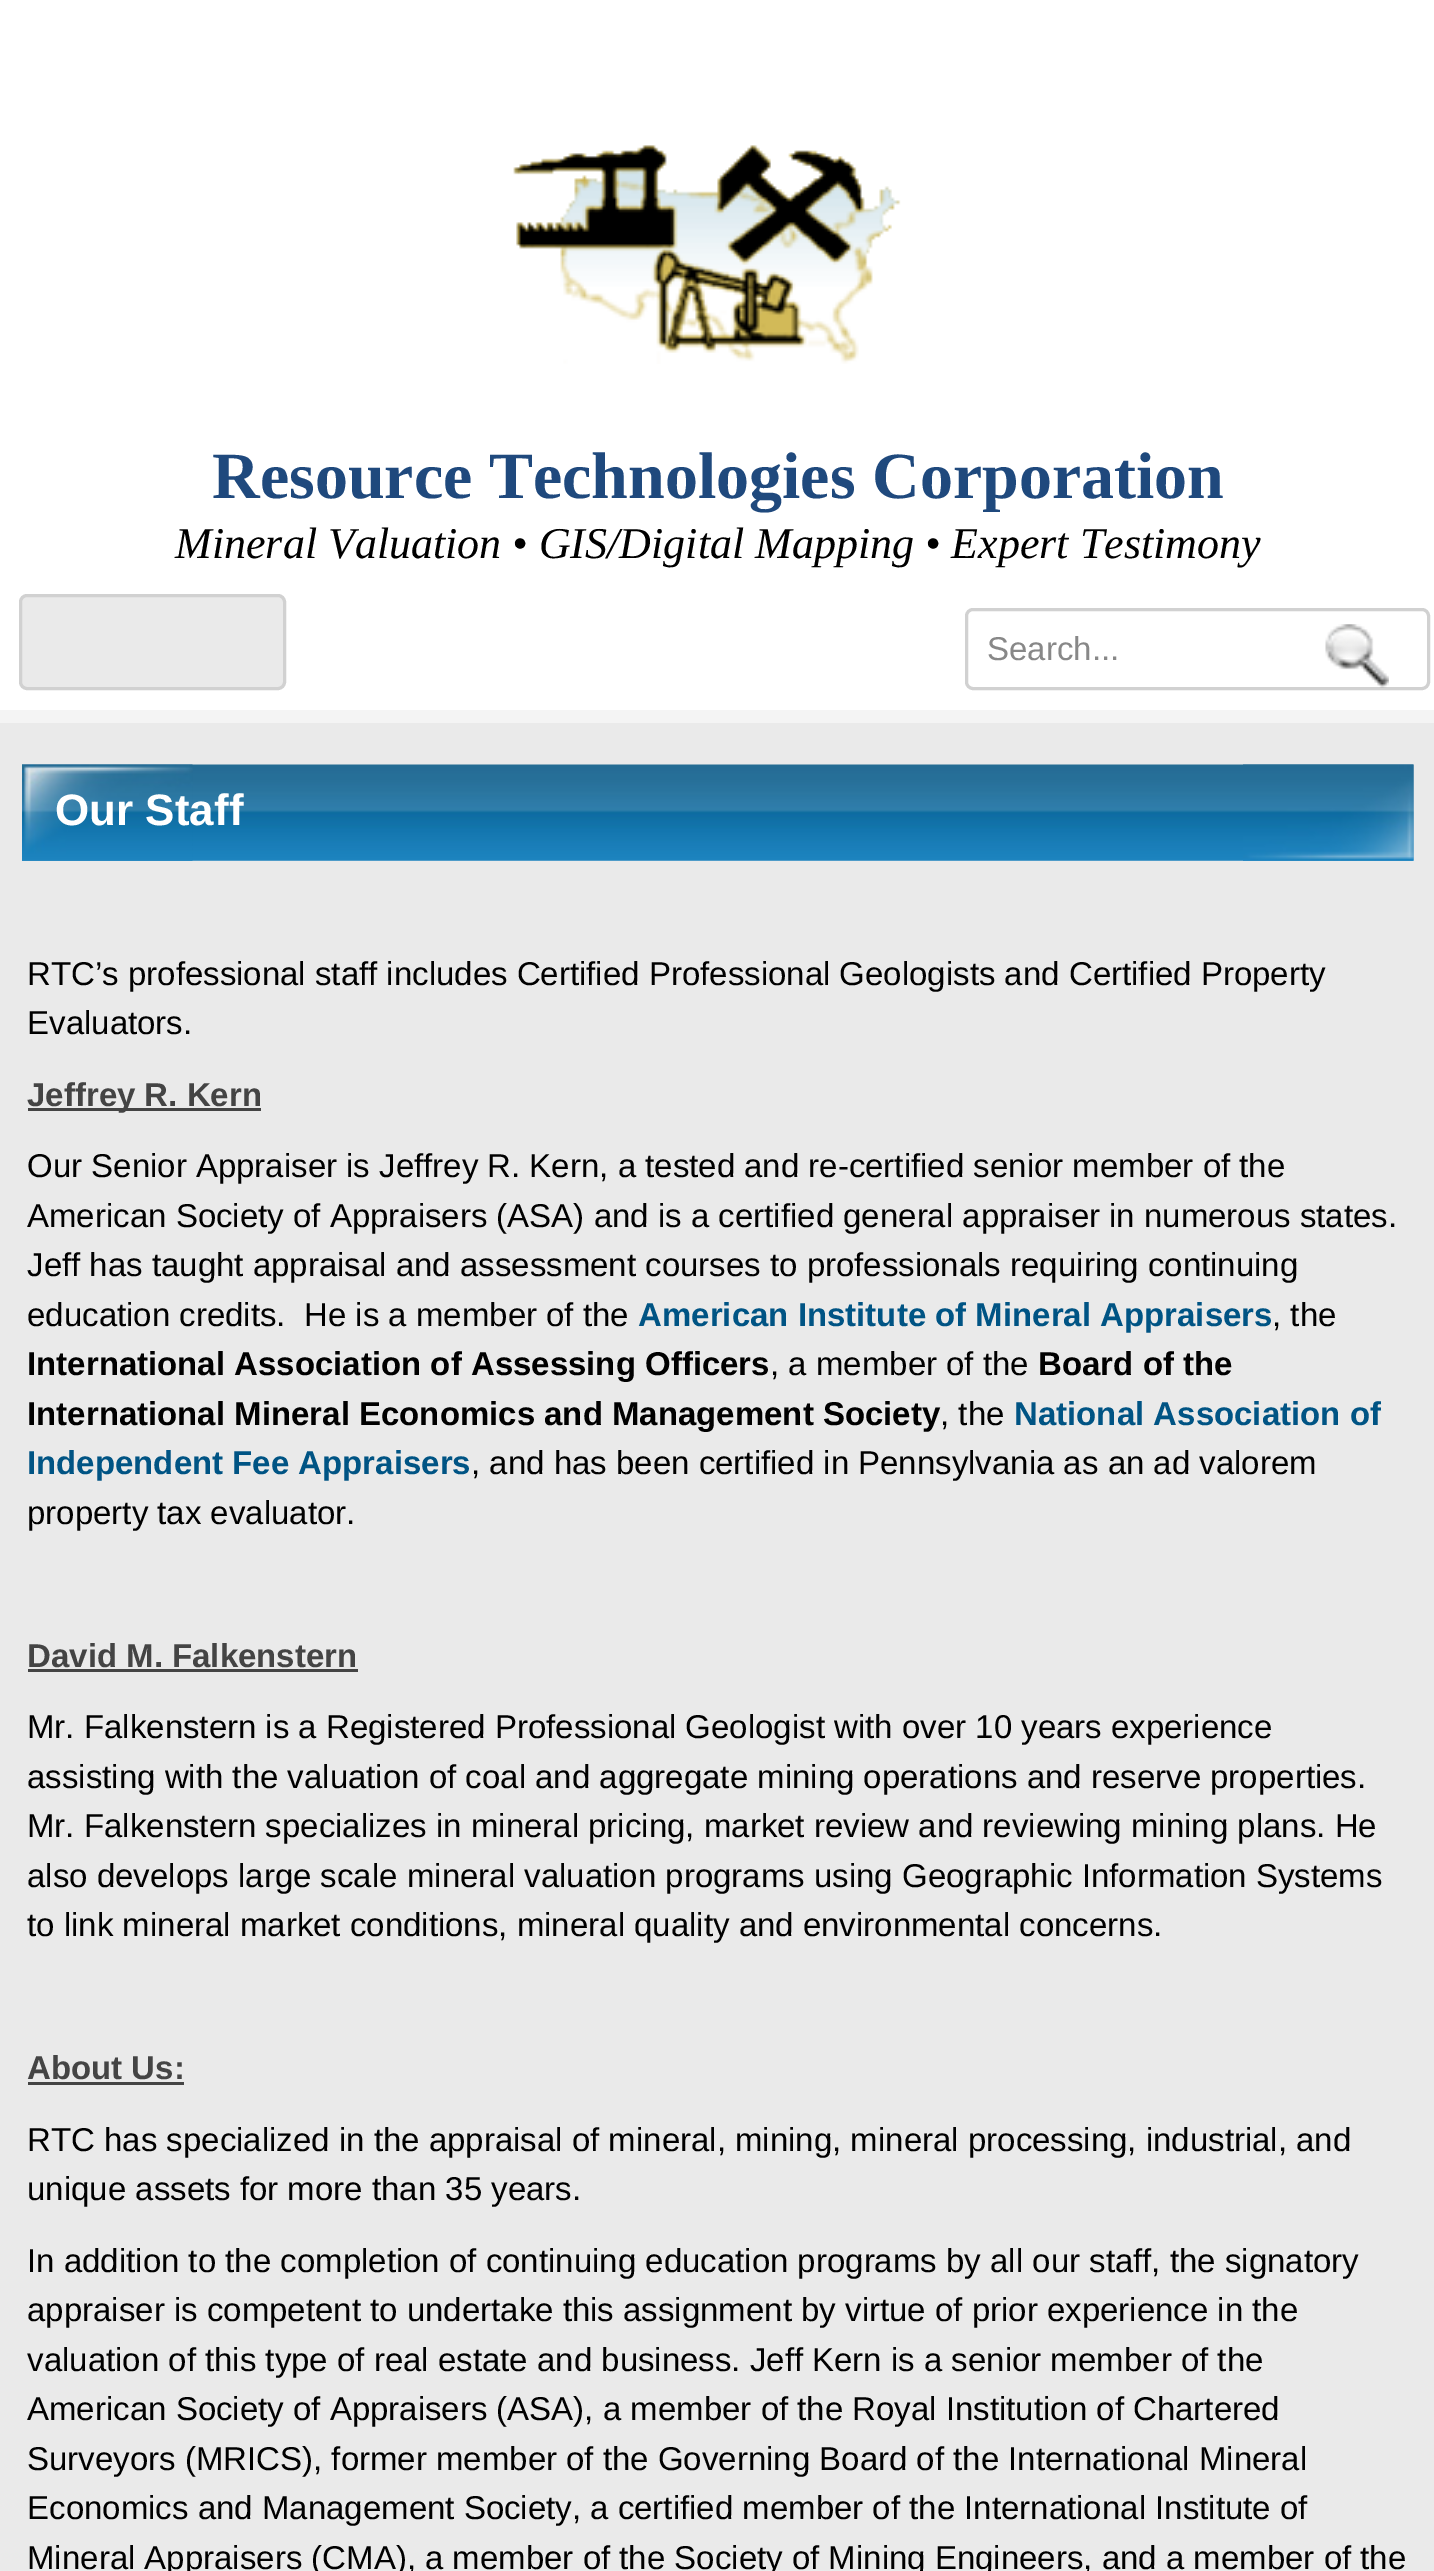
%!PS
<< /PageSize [1434 2571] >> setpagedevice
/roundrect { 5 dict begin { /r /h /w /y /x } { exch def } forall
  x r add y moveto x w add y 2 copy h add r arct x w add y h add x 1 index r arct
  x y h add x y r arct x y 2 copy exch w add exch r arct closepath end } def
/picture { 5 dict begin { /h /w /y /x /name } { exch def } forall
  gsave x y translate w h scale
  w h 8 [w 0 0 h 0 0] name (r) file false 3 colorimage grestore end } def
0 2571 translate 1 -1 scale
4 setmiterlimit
0.918 setgray
0 0 1434 2571 rectfill
1 setgray
0 0 1434 710 rectfill
(img1.rgb) 513 145 388 219 picture
/LiberationSerif-Bold [66 0 0 -66 0 0] selectfont
0.122 0.286 0.49 setrgbcolor
212 498 moveto (Resource Technologies Corporation) show
/LiberationSerif-Italic [44 0 0 -44 0 0] selectfont
0 setgray
175 558 moveto (Mineral Valuation • GIS/Digital Mapping • Expert Testimony) show
0.918 setgray
20.5 595.5 264 93 6.5 roundrect gsave fill grestore
0.82 setgray
3 setlinewidth
stroke
966.5 609.5 462 79 6.5 roundrect stroke
/LiberationSans-Regular [33 0 0 -33 0 0] selectfont
0.533 setgray
987 660 moveto (Search...) show
(img2.rgb) 1325 624 64 64 picture
0.957 setgray
0 710 1434 13 rectfill
(img3.rgb) 22 764 1392 97 picture
(img4.rgb) 22 764 171 97 picture
(img5.rgb) 1243 764 171 97 picture
/LiberationSans-Bold [44 0 0 -44 0 0] selectfont
1 setgray
55 825 moveto (Our Staff) show
/LiberationSans-Regular [33 0 0 -33 0 0] selectfont
0 setgray
27 985 moveto (RTC’s professional staff includes Certified Professional Geologists and Certified Property) show
27 1034 moveto (Evaluators.) show
0.267 setgray
28 1108 233 3 rectfill
/LiberationSans-Bold [33 0 0 -33 0 0] selectfont
27 1106 moveto (Jeffrey R. Kern) show
/LiberationSans-Regular [33 0 0 -33 0 0] selectfont
0 setgray
27 1177 moveto (Our Senior Appraiser is Jeffrey R. Kern, a tested and re-certified senior member of the) show
27 1227 moveto (American Society of Appraisers \(ASA\) and is a certified general appraiser in numerous states.) show
27 1276 moveto (Jeff has taught appraisal and assessment courses to professionals requiring continuing) show
27 1326 moveto (education credits.  He is a member of the) show
/LiberationSans-Bold [33 0 0 -33 0 0] selectfont
0 0.329 0.518 setrgbcolor
638 1326 moveto (American Institute of Mineral Appraisers) show
/LiberationSans-Regular [33 0 0 -33 0 0] selectfont
0 setgray
1272 1326 moveto (, the) show
/LiberationSans-Bold [33 0 0 -33 0 0] selectfont
27 1375 moveto (International Association of Assessing Officers) show
/LiberationSans-Regular [33 0 0 -33 0 0] selectfont
770 1375 moveto (, a member of the) show
/LiberationSans-Bold [33 0 0 -33 0 0] selectfont
1038 1375 moveto (Board of the) show
27 1425 moveto (International Mineral Economics and Management Society) show
/LiberationSans-Regular [33 0 0 -33 0 0] selectfont
940 1425 moveto (, the) show
/LiberationSans-Bold [33 0 0 -33 0 0] selectfont
0 0.329 0.518 setrgbcolor
1014 1425 moveto (National Association of) show
27 1474 moveto (Independent Fee Appraisers) show
/LiberationSans-Regular [33 0 0 -33 0 0] selectfont
0 setgray
471 1474 moveto (, and has been certified in Pennsylvania as an ad valorem) show
27 1524 moveto (property tax evaluator.) show
/LiberationSans-Bold [33 0 0 -33 0 0] selectfont
0.267 setgray
27 1667 moveto (David M. Falkenstern) show
28 1669 330 3 rectfill
/LiberationSans-Regular [33 0 0 -33 0 0] selectfont
0 setgray
27 1738 moveto (Mr. Falkenstern is a Registered Professional Geologist with over 10 years experience) show
27 1788 moveto (assisting with the valuation of coal and aggregate mining operations and reserve properties.) show
27 1837 moveto (Mr. Falkenstern specializes in mineral pricing, market review and reviewing mining plans. He) show
27 1887 moveto (also develops large scale mineral valuation programs using Geographic Information Systems) show
27 1936 moveto (to link mineral market conditions, mineral quality and environmental concerns.) show
/LiberationSans-Bold [33 0 0 -33 0 0] selectfont
0.267 setgray
27 2079 moveto (About Us:) show
28 2082 156 3 rectfill
/LiberationSans-Regular [33 0 0 -33 0 0] selectfont
0 setgray
27 2151 moveto (RTC has specialized in the appraisal of mineral, mining, mineral processing, industrial, and) show
27 2200 moveto (unique assets for more than 35 years.) show
27 2272 moveto (In addition to the completion of continuing education programs by all our staff, the signatory) show
27 2321 moveto (appraiser is competent to undertake this assignment by virtue of prior experience in the) show
27 2371 moveto (valuation of this type of real estate and business. Jeff Kern is a senior member of the) show
27 2420 moveto (American Society of Appraisers \(ASA\), a member of the Royal Institution of Chartered) show
27 2470 moveto (Surveyors \(MRICS\), former member of the Governing Board of the International Mineral) show
27 2519 moveto (Economics and Management Society, a certified member of the International Institute of) show
27 2569 moveto (Mineral Appraisers \(CMA\), a member of the Society of Mining Engineers, and a member of the) show
showpage
